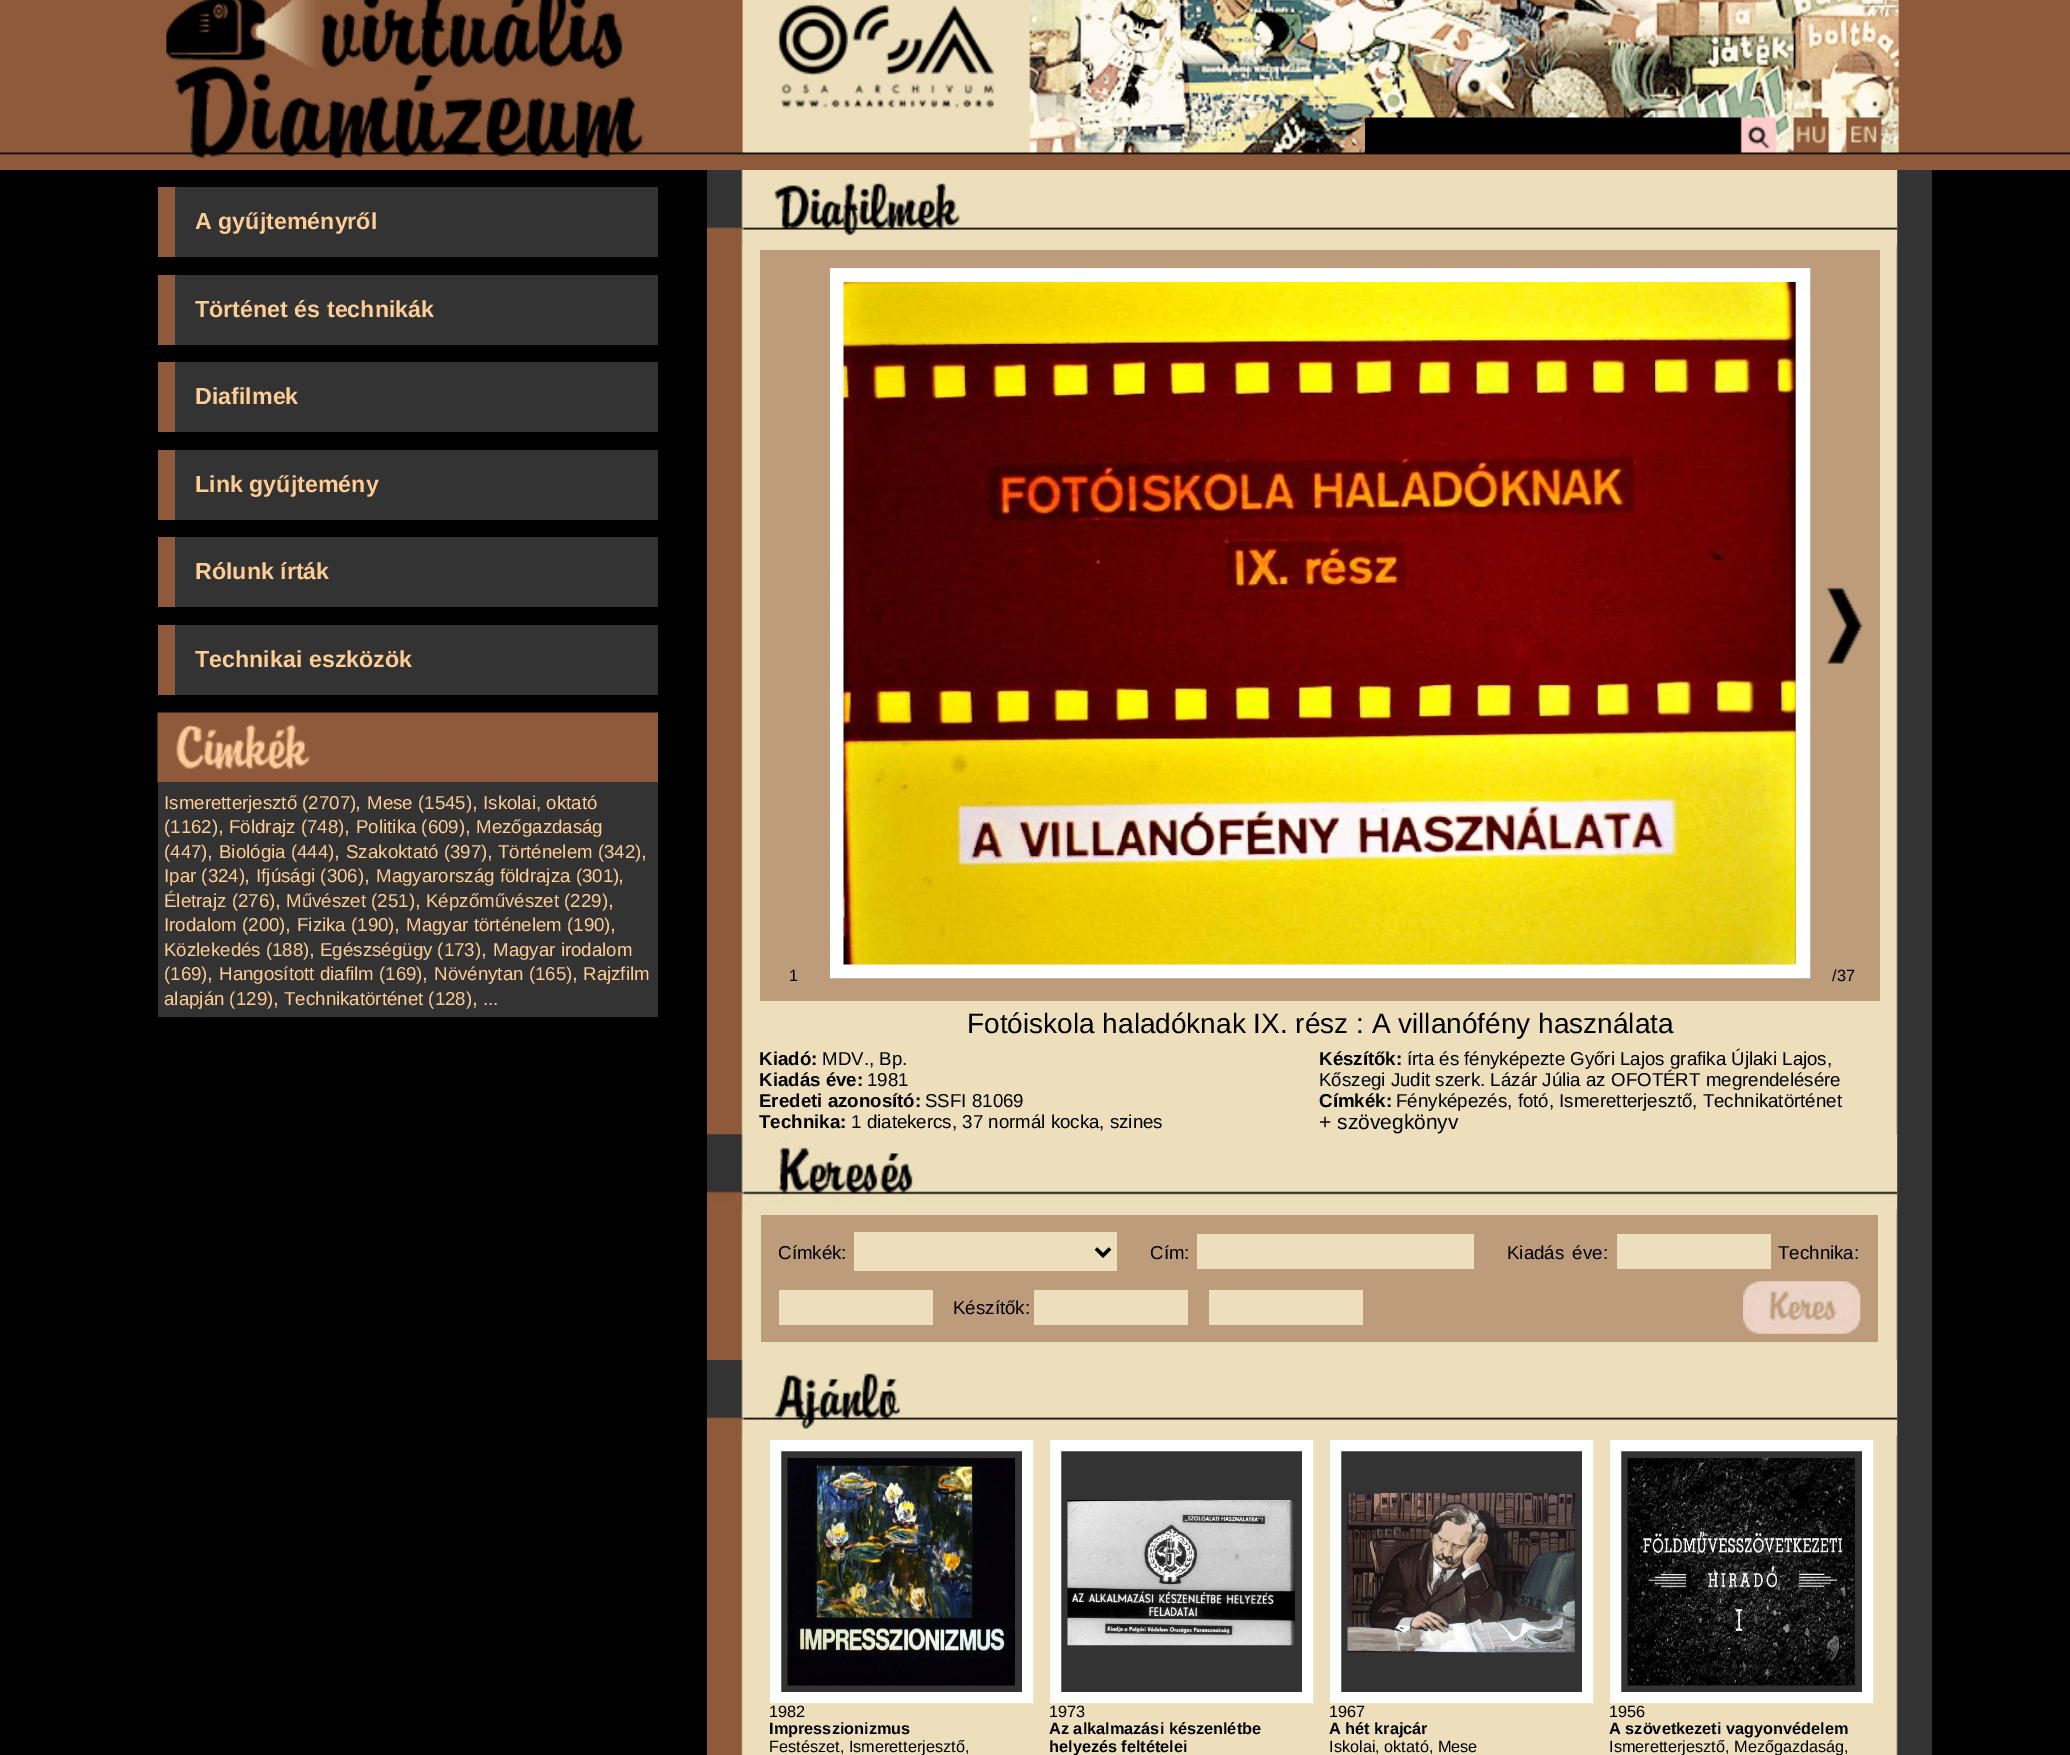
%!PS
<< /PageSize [2070 1755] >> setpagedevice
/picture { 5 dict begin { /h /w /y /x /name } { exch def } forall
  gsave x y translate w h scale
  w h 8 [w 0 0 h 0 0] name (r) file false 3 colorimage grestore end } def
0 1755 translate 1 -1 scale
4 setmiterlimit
1 setgray
0 0 2070 1755 rectfill
(img1.rgb) 0 0 2070 170 picture
(img2.rgb) 166 0 1734 159 picture
0 setgray
1365 119 375 35 rectfill
0 170 2070 1585 rectfill
0.561 0.353 0.231 setrgbcolor
158 187 17 70 rectfill
0.2 setgray
175 187 483 70 rectfill
/LiberationSans-Bold [23.25 0 0 -23.25 0 0] selectfont
0.996 0.804 0.584 setrgbcolor
195 229 moveto (A gyűjteményről) show
0.561 0.353 0.231 setrgbcolor
158 275 17 70 rectfill
0.2 setgray
175 275 483 70 rectfill
0.996 0.804 0.584 setrgbcolor
195 317 moveto (Történet és technikák) show
0.561 0.353 0.231 setrgbcolor
158 362 17 70 rectfill
0.2 setgray
175 362 483 70 rectfill
0.996 0.804 0.584 setrgbcolor
195 404 moveto (Diafilmek) show
0.561 0.353 0.231 setrgbcolor
158 450 17 70 rectfill
0.2 setgray
175 450 483 70 rectfill
0.996 0.804 0.584 setrgbcolor
195 492 moveto (Link gyűjtemény) show
0.561 0.353 0.231 setrgbcolor
158 537 17 70 rectfill
0.2 setgray
175 537 483 70 rectfill
0.996 0.804 0.584 setrgbcolor
195 579 moveto (Rólunk írták) show
0.561 0.353 0.231 setrgbcolor
158 625 17 70 rectfill
0.2 setgray
175 625 483 70 rectfill
0.996 0.804 0.584 setrgbcolor
195 667 moveto (Technikai eszközök) show
(img3.rgb) 157 712 501 71 picture
0.2 setgray
158 782 500 235 rectfill
/LiberationSans-Regular [18.7 0 0 -18.7 0 0] selectfont
0.996 0.804 0.584 setrgbcolor
164 809 moveto (Ismeretterjesztő \(2707\)) show
/LiberationSans-Regular [21 0 0 -21 0 0] selectfont
355 809 moveto (,) show
/LiberationSans-Regular [18.7 0 0 -18.7 0 0] selectfont
367 809 moveto (Mese \(1545\)) show
/LiberationSans-Regular [21 0 0 -21 0 0] selectfont
472 809 moveto (,) show
/LiberationSans-Regular [18.7 0 0 -18.7 0 0] selectfont
483 809 moveto (Iskolai, oktató) show
164 833 moveto (\(1162\)) show
/LiberationSans-Regular [21 0 0 -21 0 0] selectfont
218 833 moveto (,) show
/LiberationSans-Regular [18.7 0 0 -18.7 0 0] selectfont
229 833 moveto (Földrajz \(748\)) show
/LiberationSans-Regular [21 0 0 -21 0 0] selectfont
344 833 moveto (,) show
/LiberationSans-Regular [18.7 0 0 -18.7 0 0] selectfont
356 833 moveto (Politika \(609\)) show
/LiberationSans-Regular [21 0 0 -21 0 0] selectfont
465 833 moveto (,) show
/LiberationSans-Regular [18.7 0 0 -18.7 0 0] selectfont
476 833 moveto (Mezőgazdaság) show
164 858 moveto (\(447\)) show
/LiberationSans-Regular [21 0 0 -21 0 0] selectfont
207 858 moveto (,) show
/LiberationSans-Regular [18.7 0 0 -18.7 0 0] selectfont
219 858 moveto (Biológia \(444\)) show
/LiberationSans-Regular [21 0 0 -21 0 0] selectfont
334 858 moveto (,) show
/LiberationSans-Regular [18.7 0 0 -18.7 0 0] selectfont
346 858 moveto (Szakoktató \(397\)) show
/LiberationSans-Regular [21 0 0 -21 0 0] selectfont
487 858 moveto (,) show
/LiberationSans-Regular [18.7 0 0 -18.7 0 0] selectfont
498 858 moveto (Történelem \(342\)) show
/LiberationSans-Regular [21 0 0 -21 0 0] selectfont
641 858 moveto (,) show
/LiberationSans-Regular [18.7 0 0 -18.7 0 0] selectfont
164 882 moveto (Ipar \(324\)) show
/LiberationSans-Regular [21 0 0 -21 0 0] selectfont
244 882 moveto (,) show
/LiberationSans-Regular [18.7 0 0 -18.7 0 0] selectfont
256 882 moveto (Ifjúsági \(306\)) show
/LiberationSans-Regular [21 0 0 -21 0 0] selectfont
364 882 moveto (,) show
/LiberationSans-Regular [18.7 0 0 -18.7 0 0] selectfont
376 882 moveto (Magyarország földrajza \(301\)) show
/LiberationSans-Regular [21 0 0 -21 0 0] selectfont
618 882 moveto (,) show
/LiberationSans-Regular [18.7 0 0 -18.7 0 0] selectfont
164 907 moveto (Életrajz \(276\)) show
/LiberationSans-Regular [21 0 0 -21 0 0] selectfont
275 907 moveto (,) show
/LiberationSans-Regular [18.7 0 0 -18.7 0 0] selectfont
286 907 moveto (Művészet \(251\)) show
/LiberationSans-Regular [21 0 0 -21 0 0] selectfont
415 907 moveto (,) show
/LiberationSans-Regular [18.7 0 0 -18.7 0 0] selectfont
426 907 moveto (Képzőművészet \(229\)) show
/LiberationSans-Regular [21 0 0 -21 0 0] selectfont
608 907 moveto (,) show
/LiberationSans-Regular [18.7 0 0 -18.7 0 0] selectfont
164 931 moveto (Irodalom \(200\)) show
/LiberationSans-Regular [21 0 0 -21 0 0] selectfont
285 931 moveto (,) show
/LiberationSans-Regular [18.7 0 0 -18.7 0 0] selectfont
297 931 moveto (Fizika \(190\)) show
/LiberationSans-Regular [21 0 0 -21 0 0] selectfont
394 931 moveto (,) show
/LiberationSans-Regular [18.7 0 0 -18.7 0 0] selectfont
406 931 moveto (Magyar történelem \(190\)) show
/LiberationSans-Regular [21 0 0 -21 0 0] selectfont
610 931 moveto (,) show
/LiberationSans-Regular [18.7 0 0 -18.7 0 0] selectfont
164 956 moveto (Közlekedés \(188\)) show
/LiberationSans-Regular [21 0 0 -21 0 0] selectfont
309 956 moveto (,) show
/LiberationSans-Regular [18.7 0 0 -18.7 0 0] selectfont
320 956 moveto (Egészségügy \(173\)) show
/LiberationSans-Regular [21 0 0 -21 0 0] selectfont
481 956 moveto (,) show
/LiberationSans-Regular [18.7 0 0 -18.7 0 0] selectfont
493 956 moveto (Magyar irodalom) show
164 980 moveto (\(169\)) show
/LiberationSans-Regular [21 0 0 -21 0 0] selectfont
207 980 moveto (,) show
/LiberationSans-Regular [18.7 0 0 -18.7 0 0] selectfont
219 980 moveto (Hangosított diafilm \(169\)) show
/LiberationSans-Regular [21 0 0 -21 0 0] selectfont
422 980 moveto (,) show
/LiberationSans-Regular [18.7 0 0 -18.7 0 0] selectfont
434 980 moveto (Növénytan \(165\)) show
/LiberationSans-Regular [21 0 0 -21 0 0] selectfont
572 980 moveto (,) show
/LiberationSans-Regular [18.7 0 0 -18.7 0 0] selectfont
583 980 moveto (Rajzfilm) show
164 1005 moveto (alapján \(129\)) show
/LiberationSans-Regular [21 0 0 -21 0 0] selectfont
273 1005 moveto (,) show
/LiberationSans-Regular [18.7 0 0 -18.7 0 0] selectfont
284 1005 moveto (Technikatörténet \(128\)) show
/LiberationSans-Regular [21 0 0 -21 0 0] selectfont
472 1005 moveto (,) show
/LiberationSans-Regular [18.7 0 0 -18.7 0 0] selectfont
483 1005 moveto (...) show
(img4.rgb) 707 170 1225 1585 picture
(img5.rgb) 707 170 1190 76 picture
0.741 0.612 0.482 setrgbcolor
760 250 1120 751 rectfill
/LiberationSans-Regular [16.3 0 0 -16.3 0 0] selectfont
0 setgray
789 981 moveto (1) show
1 setgray
14 setlinewidth
837 275 966 696 rectstroke
(img6.rgb) 843 282 953 683 picture
(img7.rgb) 1826 587 37 77 picture
0 setgray
1832 981 moveto (/37) show
/LiberationSans-Regular [28 0 0 -28 0 0] selectfont
967 1033 moveto (Fotóiskola haladóknak IX. rész : A villanófény használata) show
/LiberationSans-Bold [18.7 0 0 -18.7 0 0] selectfont
759 1065 moveto (Kiadó:) show
/LiberationSans-Regular [18.7 0 0 -18.7 0 0] selectfont
822 1065 moveto (MDV., Bp.) show
/LiberationSans-Bold [18.7 0 0 -18.7 0 0] selectfont
759 1086 moveto (Kiadás éve:) show
/LiberationSans-Regular [18.7 0 0 -18.7 0 0] selectfont
867 1086 moveto (1981) show
/LiberationSans-Bold [18.7 0 0 -18.7 0 0] selectfont
759 1107 moveto (Eredeti azonosító:) show
/LiberationSans-Regular [18.7 0 0 -18.7 0 0] selectfont
925 1107 moveto (SSFI 81069) show
/LiberationSans-Bold [18.7 0 0 -18.7 0 0] selectfont
759 1128 moveto (Technika:) show
/LiberationSans-Regular [18.7 0 0 -18.7 0 0] selectfont
851 1128 moveto (1 diatekercs, 37 normál kocka, szines) show
/LiberationSans-Bold [18.7 0 0 -18.7 0 0] selectfont
1319 1065 moveto (Készítők:) show
/LiberationSans-Regular [18.7 0 0 -18.7 0 0] selectfont
1407 1065 moveto (írta és fényképezte Győri Lajos grafika Újlaki Lajos,) show
1319 1086 moveto (Kőszegi Judit szerk. Lázár Júlia az OFOTÉRT megrendelésére) show
/LiberationSans-Bold [18.7 0 0 -18.7 0 0] selectfont
1319 1107 moveto (Címkék:) show
/LiberationSans-Regular [18.7 0 0 -18.7 0 0] selectfont
1396 1107 moveto (Fényképezés, fotó, Ismeretterjesztő, Technikatörténet) show
/LiberationSans-Regular [21 0 0 -21 0 0] selectfont
1319 1129 moveto (+ szövegkönyv) show
(img8.rgb) 707 1134 1190 76 picture
0.741 0.612 0.482 setrgbcolor
761 1215 1117 127 rectfill
/LiberationSans-Regular [18.7 0 0 -18.7 0 0] selectfont
0 setgray
778 1259 moveto (Címkék:) show
0.929 0.875 0.737 setrgbcolor
854 1232 263 39 rectfill
0 setgray
3.5 setlinewidth
newpath 1096 1248.5 moveto 1103 1255.5 lineto 1110 1248.5 lineto stroke
1150 1259 moveto (Cím:) show
0.929 0.875 0.737 setrgbcolor
1197 1234 277 35 rectfill
0 setgray
1507 1259 moveto 3 0 32 (Kiadás éve:) widthshow
0.929 0.875 0.737 setrgbcolor
1617 1234 154 35 rectfill
0 setgray
1778 1259 moveto (Technika:) show
0.929 0.875 0.737 setrgbcolor
779 1290 154 35 rectfill
0 setgray
953 1314 moveto (Készítők:) show
0.929 0.875 0.737 setrgbcolor
1034 1290 154 35 rectfill
1209 1290 154 35 rectfill
(img9.rgb) 1743 1281 118 53 picture
(img10.rgb) 707 1360 1190 76 picture
0.2 setgray
newpath 775.5 1445.5 moveto 1027.5 1445.5 lineto 1027.5 1697.5 lineto 775.5 1697.5 lineto closepath gsave fill grestore
1 setgray
11 setlinewidth
stroke
(img11.rgb) 787 1458 228 228 picture
/LiberationSans-Regular [16.3 0 0 -16.3 0 0] selectfont
0 setgray
769 1717 moveto (1982) show
/LiberationSans-Bold [16.3 0 0 -16.3 0 0] selectfont
769 1734 moveto (Impresszionizmus) show
/LiberationSans-Regular [16.3 0 0 -16.3 0 0] selectfont
769 1752 moveto (Festészet, Ismeretterjesztő,) show
0.2 setgray
newpath 1055.5 1445.5 moveto 1307.5 1445.5 lineto 1307.5 1697.5 lineto 1055.5 1697.5 lineto closepath gsave fill grestore
1 setgray
stroke
(img12.rgb) 1067 1500 228 146 picture
0 setgray
1049 1717 moveto (1973) show
/LiberationSans-Bold [16.3 0 0 -16.3 0 0] selectfont
1049 1734 moveto (Az alkalmazási készenlétbe) show
1049 1752 moveto (helyezés feltételei) show
0.2 setgray
newpath 1335.5 1445.5 moveto 1587.5 1445.5 lineto 1587.5 1697.5 lineto 1335.5 1697.5 lineto closepath gsave fill grestore
1 setgray
stroke
(img13.rgb) 1347 1493 228 160 picture
/LiberationSans-Regular [16.3 0 0 -16.3 0 0] selectfont
0 setgray
1329 1717 moveto (1967) show
/LiberationSans-Bold [16.3 0 0 -16.3 0 0] selectfont
1329 1734 moveto (A hét krajcár) show
/LiberationSans-Regular [16.3 0 0 -16.3 0 0] selectfont
1329 1752 moveto (Iskolai, oktató, Mese) show
0.2 setgray
newpath 1615.5 1445.5 moveto 1867.5 1445.5 lineto 1867.5 1697.5 lineto 1615.5 1697.5 lineto closepath gsave fill grestore
1 setgray
stroke
(img14.rgb) 1627 1458 228 228 picture
0 setgray
1609 1717 moveto (1956) show
/LiberationSans-Bold [16.3 0 0 -16.3 0 0] selectfont
1609 1734 moveto (A szövetkezeti vagyonvédelem) show
/LiberationSans-Regular [16.3 0 0 -16.3 0 0] selectfont
1609 1752 moveto (Ismeretterjesztő, Mezőgazdaság,) show
showpage
